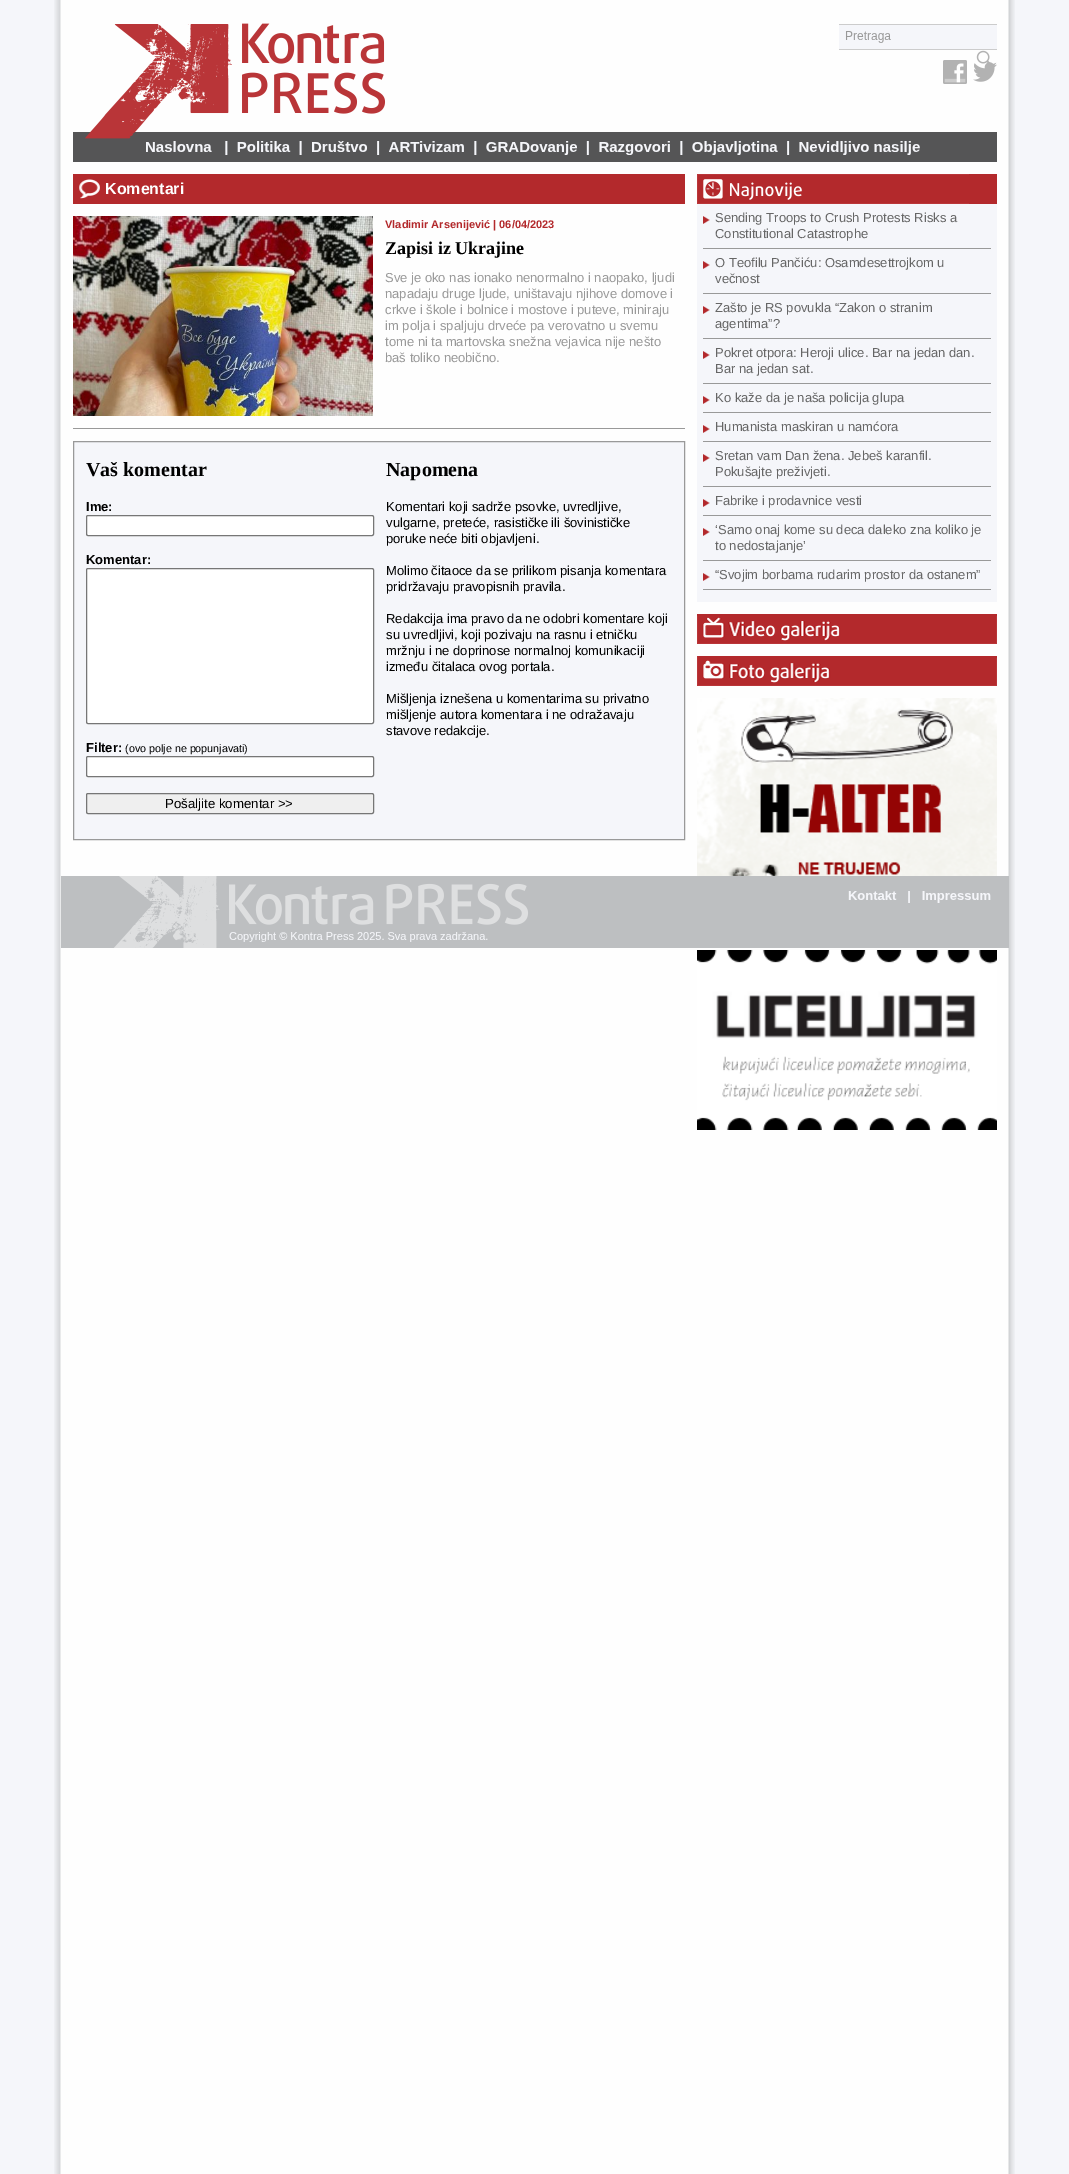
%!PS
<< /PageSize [1069 2174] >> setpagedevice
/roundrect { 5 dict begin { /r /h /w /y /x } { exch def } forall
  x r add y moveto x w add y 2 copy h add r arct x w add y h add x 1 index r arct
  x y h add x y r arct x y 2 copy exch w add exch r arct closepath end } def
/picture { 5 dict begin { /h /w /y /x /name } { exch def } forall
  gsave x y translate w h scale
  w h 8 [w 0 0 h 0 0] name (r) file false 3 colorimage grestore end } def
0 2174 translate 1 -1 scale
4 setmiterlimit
0.961 0.965 0.98 setrgbcolor
0 0 1069 2174 rectfill
(img1.rgb) 54 0 961 2174 picture
(img2.rgb) 73 23 924 139 picture
0.702 0.161 0.173 setrgbcolor
73 174 612 30 rectfill
(img3.rgb) 79 179 21 20 picture
/LiberationSans-Bold [16 0 0 -16 0 0] selectfont
1 setgray
105 194 moveto (Komentari) show
0.6 setgray
73 428 612 1 rectfill
(img4.rgb) 73 216 300 200 picture
/LiberationSans-Bold [11 0 0 -11 0 0] selectfont
0.702 0.161 0.173 setrgbcolor
385 228 moveto (Vladimir Arsenijević | 06/04/2023) show
/LiberationSerif-Bold [18 0 0 -18 0 0] selectfont
0 setgray
385 254 moveto (Zapisi iz Ukrajine) show
/LiberationSans-Regular [13 0 0 -13 0 0] selectfont
0.6 setgray
385 282 moveto (Sve je oko nas ionako nenormalno i naopako, ljudi) show
385 298 moveto (napadaju druge ljude, uništavaju njihove domove i) show
385 314 moveto (crkve i škole i bolnice i mostove i puteve, miniraju) show
385 330 moveto (im polja i spaljuju drveće pa verovatno u svemu) show
385 346 moveto (tome ni ta martovska snežna vejavica nije nešto) show
385 362 moveto (baš toliko neobično.) show
0.961 0.965 0.98 setrgbcolor
newpath 73.5 441.5 moveto 684.5 441.5 lineto 684.5 839.5 lineto 73.5 839.5 lineto closepath gsave fill grestore
0.6 setgray
stroke
/LiberationSerif-Bold [20 0 0 -20 0 0] selectfont
0 setgray
86 476 moveto (Vaš komentar) show
/LiberationSans-Bold [13 0 0 -13 0 0] selectfont
86 511 moveto (Ime:) show
1 setgray
86.5 515.5 287 20 1.5 roundrect gsave fill grestore
0.463 setgray
stroke
0 setgray
86 564 moveto (Komentar:) show
1 setgray
86.5 568.5 287 155 1.5 roundrect gsave fill grestore
0.463 setgray
stroke
0 setgray
86 752 moveto (Filter:) show
/LiberationSans-Regular [10.75 0 0 -10.75 0 0] selectfont
125 752 moveto (\(ovo polje ne popunjavati\)) show
1 setgray
86.5 756.5 287 20 1.5 roundrect gsave fill grestore
0.463 setgray
stroke
0.937 setgray
86.5 793.5 287 20 1.5 roundrect gsave fill grestore
0.463 setgray
stroke
/LiberationSans-Regular [13.25 0 0 -13.25 0 0] selectfont
0 setgray
165 808 moveto (Pošaljite komentar >>) show
/LiberationSerif-Bold [20 0 0 -20 0 0] selectfont
386 476 moveto (Napomena) show
/LiberationSans-Regular [13 0 0 -13 0 0] selectfont
386 511 moveto (Komentari koji sadrže psovke, uvredljive,) show
386 527 moveto (vulgarne, preteće, rasističke ili šovinističke) show
386 543 moveto (poruke neće biti objavljeni.) show
386 575 moveto (Molimo čitaoce da se prilikom pisanja komentara) show
386 591 moveto (pridržavaju pravopisnih pravila.) show
386 623 moveto (Redakcija ima pravo da ne odobri komentare koji) show
386 639 moveto (su uvredljivi, koji pozivaju na rasnu i etničku) show
386 655 moveto (mržnju i ne doprinose normalnoj komunikaciji) show
386 671 moveto (između čitalaca ovog portala.) show
386 703 moveto (Mišljenja iznešena u komentarima su privatno) show
386 719 moveto (mišljenje autora komentara i ne odražavaju) show
386 735 moveto (stavove redakcije.) show
(img5.rgb) 697 174 300 30 picture
0.961 0.965 0.98 setrgbcolor
697 204 300 398 rectfill
(img6.rgb) 703 216 7 8 picture
0.6 setgray
703 248 288 1 rectfill
0.4 setgray
715 222 moveto (Sending Troops to Crush Protests Risks a) show
715 238 moveto (Constitutional Catastrophe) show
(img6.rgb) 703 261 7 8 picture
0.6 setgray
703 293 288 1 rectfill
0.4 setgray
715 267 moveto (O Teofilu Pančiću: Osamdesettrojkom u) show
715 283 moveto (večnost) show
(img6.rgb) 703 306 7 8 picture
0.6 setgray
703 338 288 1 rectfill
0.4 setgray
715 312 moveto (Zašto je RS povukla “Zakon o stranim) show
715 328 moveto (agentima”?) show
(img6.rgb) 703 351 7 8 picture
0.6 setgray
703 383 288 1 rectfill
0.4 setgray
715 357 moveto (Pokret otpora: Heroji ulice. Bar na jedan dan.) show
715 373 moveto (Bar na jedan sat.) show
(img6.rgb) 703 396 7 8 picture
0.6 setgray
703 412 288 1 rectfill
0.4 setgray
715 402 moveto (Ko kaže da je naša policija glupa) show
(img6.rgb) 703 425 7 8 picture
0.6 setgray
703 441 288 1 rectfill
0.4 setgray
715 431 moveto (Humanista maskiran u namćora) show
(img6.rgb) 703 454 7 8 picture
0.6 setgray
703 486 288 1 rectfill
0.4 setgray
715 460 moveto (Sretan vam Dan žena. Jebeš karanfil.) show
715 476 moveto (Pokušajte preživjeti.) show
(img6.rgb) 703 499 7 8 picture
0.6 setgray
703 515 288 1 rectfill
0.4 setgray
715 505 moveto (Fabrike i prodavnice vesti) show
(img6.rgb) 703 528 7 8 picture
0.6 setgray
703 560 288 1 rectfill
0.4 setgray
715 534 moveto (‘Samo onaj kome su deca daleko zna koliko je) show
715 550 moveto (to nedostajanje’) show
(img6.rgb) 703 573 7 8 picture
0.6 setgray
703 589 288 1 rectfill
0.4 setgray
715 579 moveto (“Svojim borbama rudarim prostor da ostanem”) show
(img7.rgb) 697 614 300 30 picture
(img8.rgb) 697 656 300 30 picture
(img9.rgb) 697 698 300 178 picture
(img10.rgb) 697 950 300 180 picture
(img11.rgb) 61 876 948 72 picture
showpage
